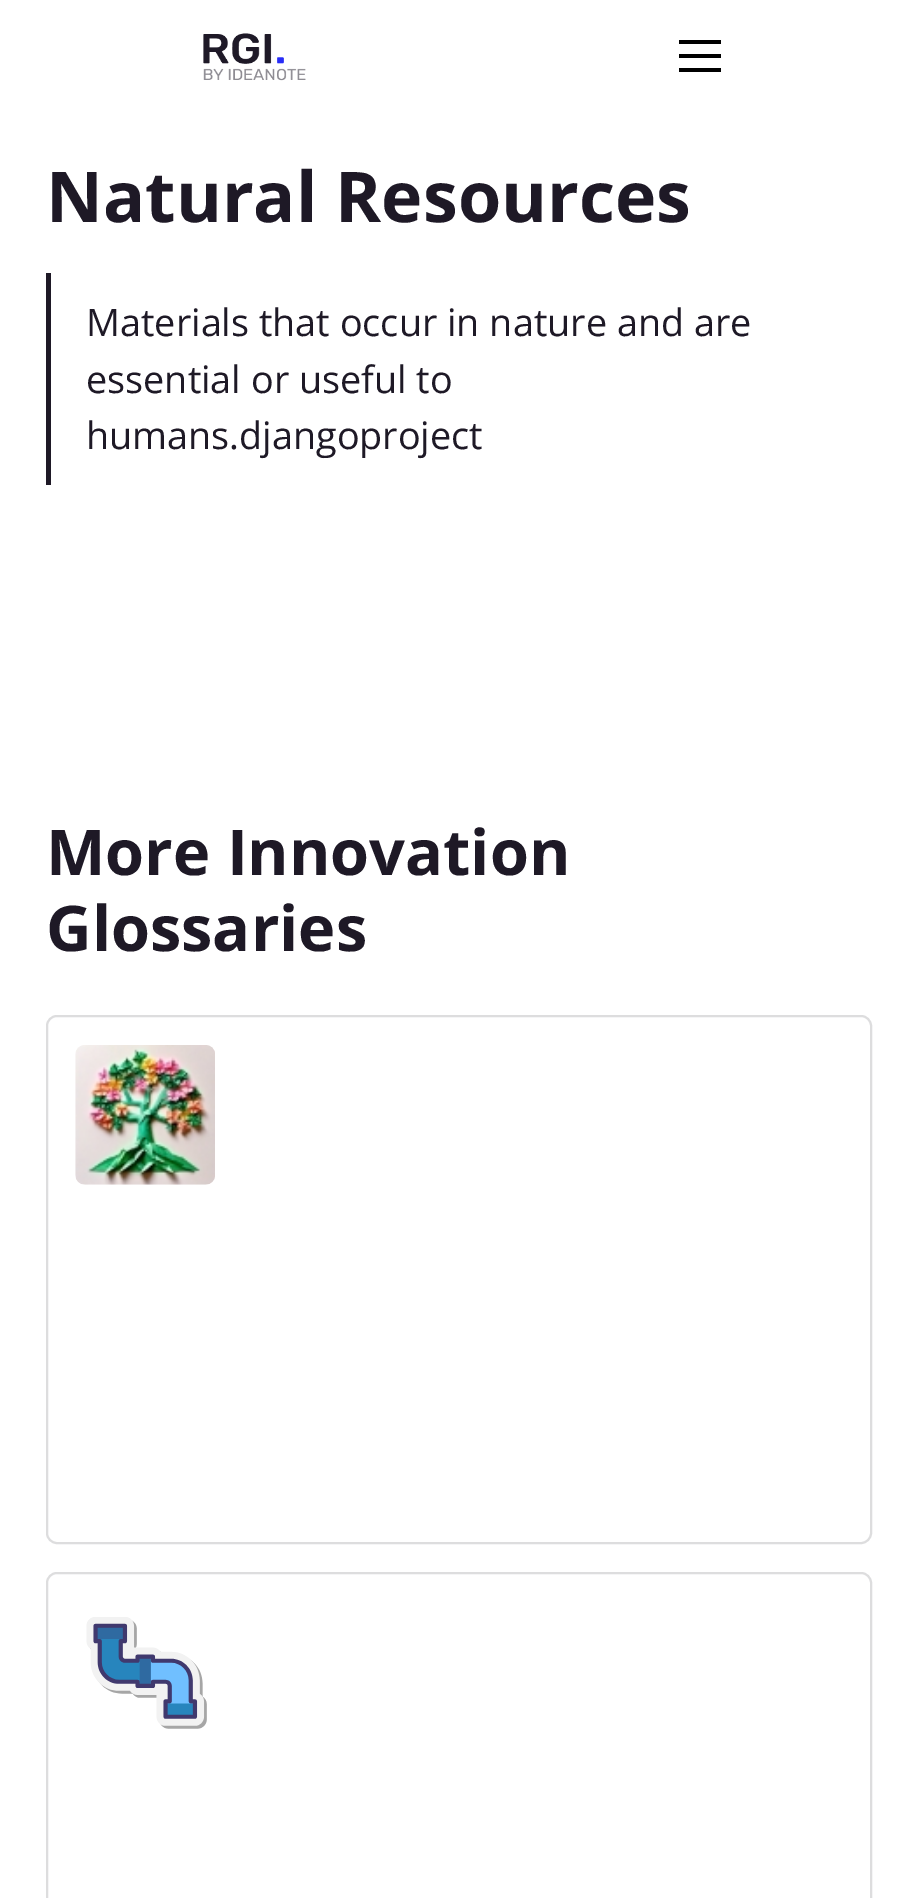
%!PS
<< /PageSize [916 1898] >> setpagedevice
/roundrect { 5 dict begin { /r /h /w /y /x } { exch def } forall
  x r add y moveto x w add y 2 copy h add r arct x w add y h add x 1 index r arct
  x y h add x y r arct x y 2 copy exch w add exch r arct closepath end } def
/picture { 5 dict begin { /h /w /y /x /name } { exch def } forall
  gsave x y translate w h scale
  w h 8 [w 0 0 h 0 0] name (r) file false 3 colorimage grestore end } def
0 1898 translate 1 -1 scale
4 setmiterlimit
1 setgray
0 0 916 1898 rectfill
(img1.rgb) 203 33 103 48 picture
0 setgray
679 40 42 4 rectfill
679 54 42 4 rectfill
679 68 42 4 rectfill
/OpenSans-Bold [70 0 0 -70 0 0] selectfont
0.118 0.098 0.149 setrgbcolor
46 222 moveto (Natural Resources) show
46 273 5 212 rectfill
/OpenSans-Regular [37.75 0 0 -37.75 0 0] selectfont
86 336 moveto (Materials that occur in nature and are) show
86 393 moveto (essential or useful to) show
86 449 moveto (humans.djangoproject) show
/OpenSans-Bold [63 0 0 -63 0 0] selectfont
46 875 moveto (More Innovation) show
46 951 moveto (Glossaries) show
0.867 0.867 0.871 setrgbcolor
2 setlinewidth
47 1016 824 527 10 roundrect stroke
(img2.rgb) 75 1045 140 140 picture
47 1573 824 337 10 roundrect stroke
(img3.rgb) 86 1617 121 112 picture
showpage
